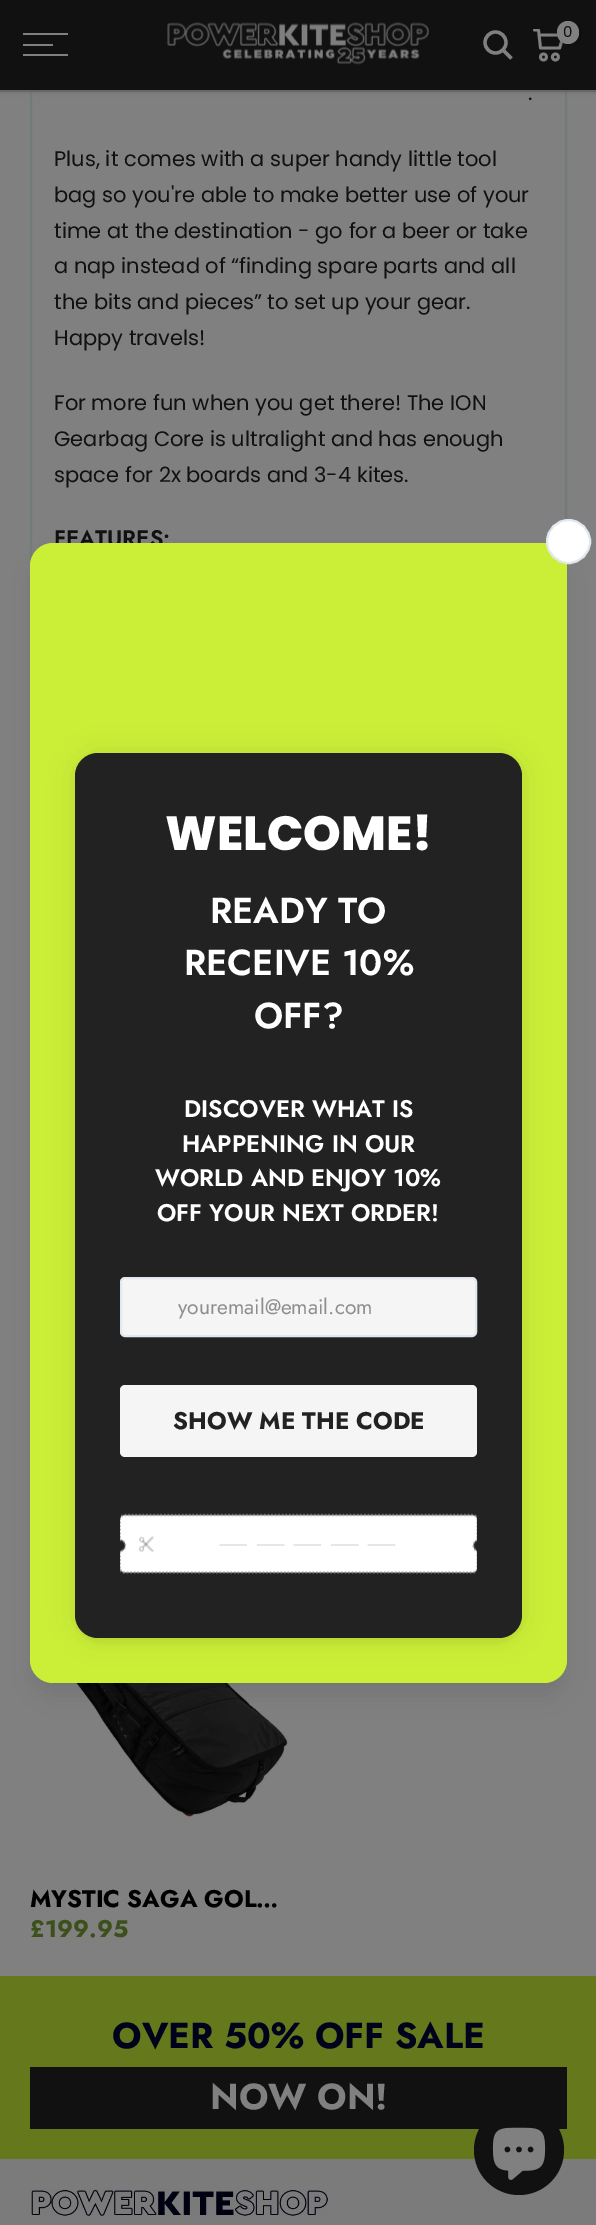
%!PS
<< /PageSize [596 2225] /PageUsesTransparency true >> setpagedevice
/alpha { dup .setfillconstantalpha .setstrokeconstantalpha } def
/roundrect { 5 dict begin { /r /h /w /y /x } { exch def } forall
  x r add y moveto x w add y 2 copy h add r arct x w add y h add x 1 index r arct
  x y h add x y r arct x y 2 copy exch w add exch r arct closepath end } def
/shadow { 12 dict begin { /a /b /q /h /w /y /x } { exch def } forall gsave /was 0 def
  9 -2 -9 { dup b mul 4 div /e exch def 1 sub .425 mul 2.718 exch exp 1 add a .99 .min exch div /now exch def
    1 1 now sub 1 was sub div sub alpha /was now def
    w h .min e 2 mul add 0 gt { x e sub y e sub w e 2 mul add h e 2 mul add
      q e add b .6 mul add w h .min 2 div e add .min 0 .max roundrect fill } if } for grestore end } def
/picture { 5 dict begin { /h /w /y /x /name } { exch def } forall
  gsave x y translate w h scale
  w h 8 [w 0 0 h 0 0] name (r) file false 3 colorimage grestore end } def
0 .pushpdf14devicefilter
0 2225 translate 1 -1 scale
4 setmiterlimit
0.502 setgray
0 0 596 2225 rectfill
0.451 0.482 0.471 setrgbcolor
2 setlinewidth
31 -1 535 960 rectstroke
0 setgray
0 2 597 91 0 2 0.1 shadow
0.4 setgray
0 90 596 2 rectfill
0.067 setgray
0 0 596 90 rectfill
(img1.rgb) 167 22 262 43 picture
0.502 setgray
3.3 setlinewidth
newpath 495.5 42.5 10.5 0 360 arc closepath stroke
newpath 503 50 moveto 511.5 58.5 lineto stroke
(img2.rgb) 533 29 30 33 picture
0 setgray
558 23 23 22 11 2 0.3 shadow
0.502 setgray
557 21 22 23 11 roundrect fill
/Poppins-Regular [15 0 0 -15 0 0] selectfont
0.067 setgray
563 37 moveto (0) show
0.502 setgray
23 33 45 2 rectfill
23 44 30 2 rectfill
23 54 45 2 rectfill
/Poppins-Regular [21 0 0 -21 0 0] selectfont
0.067 setgray
528 100 moveto (.) show
54 166 moveto (Plus, it comes with a super handy little tool) show
54 202 moveto (bag so you're able to make better use of your) show
54 238 moveto (time at the destination - go for a beer or take) show
54 273 moveto (a nap instead of “finding spare parts and all) show
54 309 moveto (the bits and pieces” to set up your gear.) show
54 345 moveto (Happy travels!) show
54 410 moveto (For more fun when you get there! The ION) show
54 446 moveto (Gearbag Core is ultralight and has enough) show
54 482 moveto (space for 2x boards and 3-4 kites.) show
/Jost-SemiBold [22.5 0 0 -22.5 0 0] selectfont
54 546 moveto (FEATURES:) show
(img3.rgb) 33 1671 255 146 picture
/Jost-Bold [24 0 0 -24 0 0] selectfont
0 setgray
30 1907 moveto (MYSTIC SAGA GOL…) show
0.231 0.314 0.102 setrgbcolor
30 1937 moveto (£199.95) show
0.4 0.471 0.11 setrgbcolor
0 1976 596 183 rectfill
/Jost-Bold [36 0 0 -36 0 0] selectfont
0 0.008 0.11 setrgbcolor
112 2048 moveto (OVER 50% OFF SALE) show
0.067 setgray
30 2067 537 62 rectfill
0.502 setgray
210 2109 moveto (NOW ON!) show
0.482 setgray
0 2159 596 66 rectfill
(img4.rgb) 31 2189 297 27 picture
0 setgray
35 563 528 1131 18 11 0.1 shadow
0.796 0.937 0.216 setrgbcolor
30 543 537 1140 23 roundrect fill
1 setgray
newpath 568.5 541.5 21.5 0 360 arc closepath gsave fill grestore
0.886 0.91 0.941 setrgbcolor
2 setlinewidth
stroke
0 setgray
78 762 441 879 20 4.5 0.05 shadow
80 758 438 876 18 15 0.12 shadow
0.133 setgray
75 753 447 885 23 roundrect fill
/Poppins-ExtraBold [48 0 0 -48 0 0] selectfont
1 setgray
165 850 moveto (WELCOME!) show
/Jost-SemiBold [36 0 0 -36 0 0] selectfont
210 923 moveto (READY TO) show
184 975 moveto (RECEIVE 10%) show
254 1028 moveto (OFF?) show
/Jost-SemiBold [24 0 0 -24 0 0] selectfont
184 1117 moveto (DISCOVER WHAT IS) show
182 1152 moveto (HAPPENING IN OUR) show
155 1186 moveto (WORLD AND ENJOY 10%) show
157 1221 moveto (OFF YOUR NEXT ORDER!) show
0.961 setgray
121 1278 355 58 4 roundrect gsave fill grestore
0.886 0.91 0.941 setrgbcolor
stroke
/Jost-Regular [21 0 0 -21 0 0] selectfont
0.557 setgray
178 1314 moveto (youremail@email.com) show
0.961 setgray
120 1385 357 72 5 roundrect fill
/Jost-Bold [24 0 0 -24 0 0] selectfont
0.133 setgray
173 1429 moveto (SHOW ME THE CODE) show
(img5.rgb) 120 1513 357 61 picture
0.067 setgray
newpath 519 2150 45 0 360 arc closepath fill
(img6.rgb) 492 2127 54 53 picture
.poppdf14devicefilter showpage
